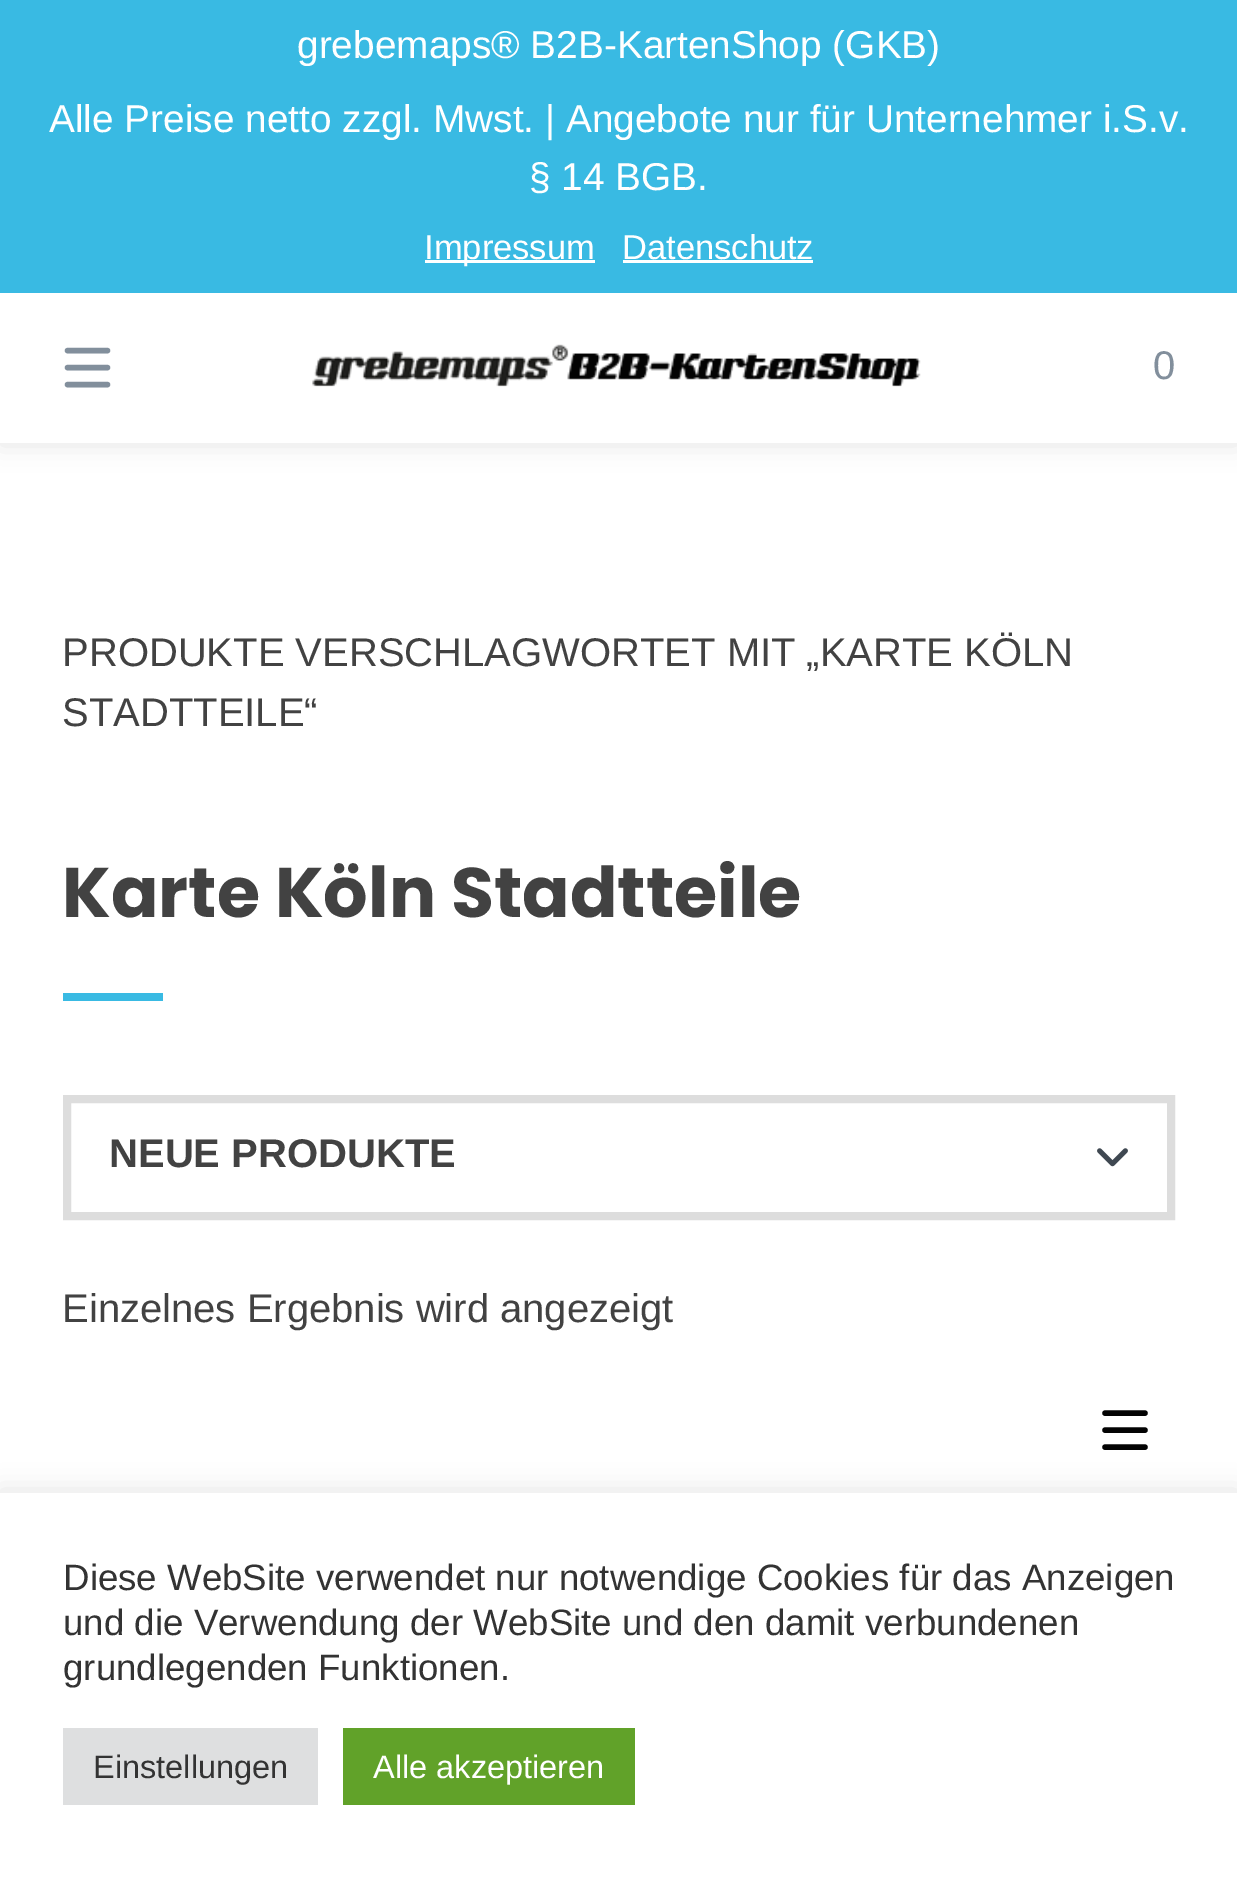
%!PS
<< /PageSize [1237 1880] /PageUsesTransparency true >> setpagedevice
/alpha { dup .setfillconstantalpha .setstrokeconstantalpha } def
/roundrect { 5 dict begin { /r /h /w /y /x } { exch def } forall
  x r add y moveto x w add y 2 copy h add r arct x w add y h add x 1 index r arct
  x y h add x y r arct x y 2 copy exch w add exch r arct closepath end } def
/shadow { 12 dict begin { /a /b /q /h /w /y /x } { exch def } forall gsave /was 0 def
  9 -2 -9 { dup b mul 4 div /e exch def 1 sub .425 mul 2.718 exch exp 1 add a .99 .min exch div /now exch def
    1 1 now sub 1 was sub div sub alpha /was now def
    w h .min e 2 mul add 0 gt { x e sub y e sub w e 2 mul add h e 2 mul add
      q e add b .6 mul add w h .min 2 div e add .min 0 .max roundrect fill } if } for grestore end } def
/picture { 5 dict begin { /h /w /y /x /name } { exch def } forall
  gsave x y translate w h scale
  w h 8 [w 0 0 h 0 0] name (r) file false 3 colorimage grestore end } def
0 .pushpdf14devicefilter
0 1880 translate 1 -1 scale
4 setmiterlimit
1 setgray
0 0 1237 1880 rectfill
0.012 setgray
0 3 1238 442 0 12.5 0.1 shadow
0.224 0.729 0.89 setrgbcolor
0 0 1237 293 rectfill
/LiberationSans-Regular [38.8 0 0 -38.8 0 0] selectfont
1 setgray
297 58 moveto (grebemaps® B2B-KartenShop \(GKB\)) show
49 132 moveto (Alle Preise netto zzgl. Mwst. | Angebote nur für Unternehmer i.S.v.) show
529 190 moveto (§ 14 BGB.) show
425 260 170 3 rectfill
/LiberationSans-Regular [34.5 0 0 -34.5 0 0] selectfont
424 259 moveto (Impressum) show
622 259 moveto (Datenschutz) show
623 260 190 3 rectfill
0 293 1237 150 rectfill
0.51 0.561 0.612 setrgbcolor
5.5 setlinewidth
1 setlinecap
newpath 67.5 350.5 moveto 107.5 350.5 lineto 67.5 367.5 moveto 107.5 367.5 lineto 67.5 384.5 moveto 107.5 384.5 lineto stroke
(img1.rgb) 312 344 609 43 picture
/LiberationSans-Regular [40 0 0 -40 0 0] selectfont
1153 379 moveto (0) show
0.259 setgray
62 666 moveto (PRODUKTE VERSCHLAGWORTET MIT „KARTE KÖLN) show
62 726 moveto (STADTTEILE“) show
/Poppins-Bold [70 0 0 -70 0 0] selectfont
62 917 moveto (Karte Köln Stadtteile) show
0.224 0.729 0.89 setrgbcolor
63 993 100 8 rectfill
(img2.rgb) 1097 1148 31 19 picture
0.867 setgray
8 setlinewidth
0 setlinecap
67 1099 1104 117 rectstroke
/LiberationSans-Bold [40 0 0 -40 0 0] selectfont
0.259 setgray
109 1167 moveto (NEUE PRODUKTE) show
/LiberationSans-Regular [40 0 0 -40 0 0] selectfont
62 1322 moveto (Einzelnes Ergebnis wird angezeigt) show
0.012 setgray
5.5 setlinewidth
1 setlinecap
newpath 1105 1413 moveto 1145 1413 lineto 1105 1430 moveto 1145 1430 lineto 1105 1447 moveto 1145 1447 lineto stroke
0.675 0.671 0.671 setrgbcolor
0 1490 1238 388 0 12.5 0.3 shadow
1 setgray
0 1493 1237 387 rectfill
/LiberationSans-Regular [36.7 0 0 -36.7 0 0] selectfont
0.2 setgray
63 1590 moveto (Diese WebSite verwendet nur notwendige Cookies für das Anzeigen) show
63 1635 moveto (und die Verwendung der WebSite und den damit verbundenen) show
63 1680 moveto (grundlegenden Funktionen.) show
0.871 0.875 0.878 setrgbcolor
63 1728 255 77 rectfill
/LiberationSans-Regular [32.5 0 0 -32.5 0 0] selectfont
0.2 setgray
93 1778 moveto (Einstellungen) show
0.38 0.635 0.161 setrgbcolor
343 1728 292 77 rectfill
1 setgray
373 1778 moveto (Alle akzeptieren) show
.poppdf14devicefilter showpage
